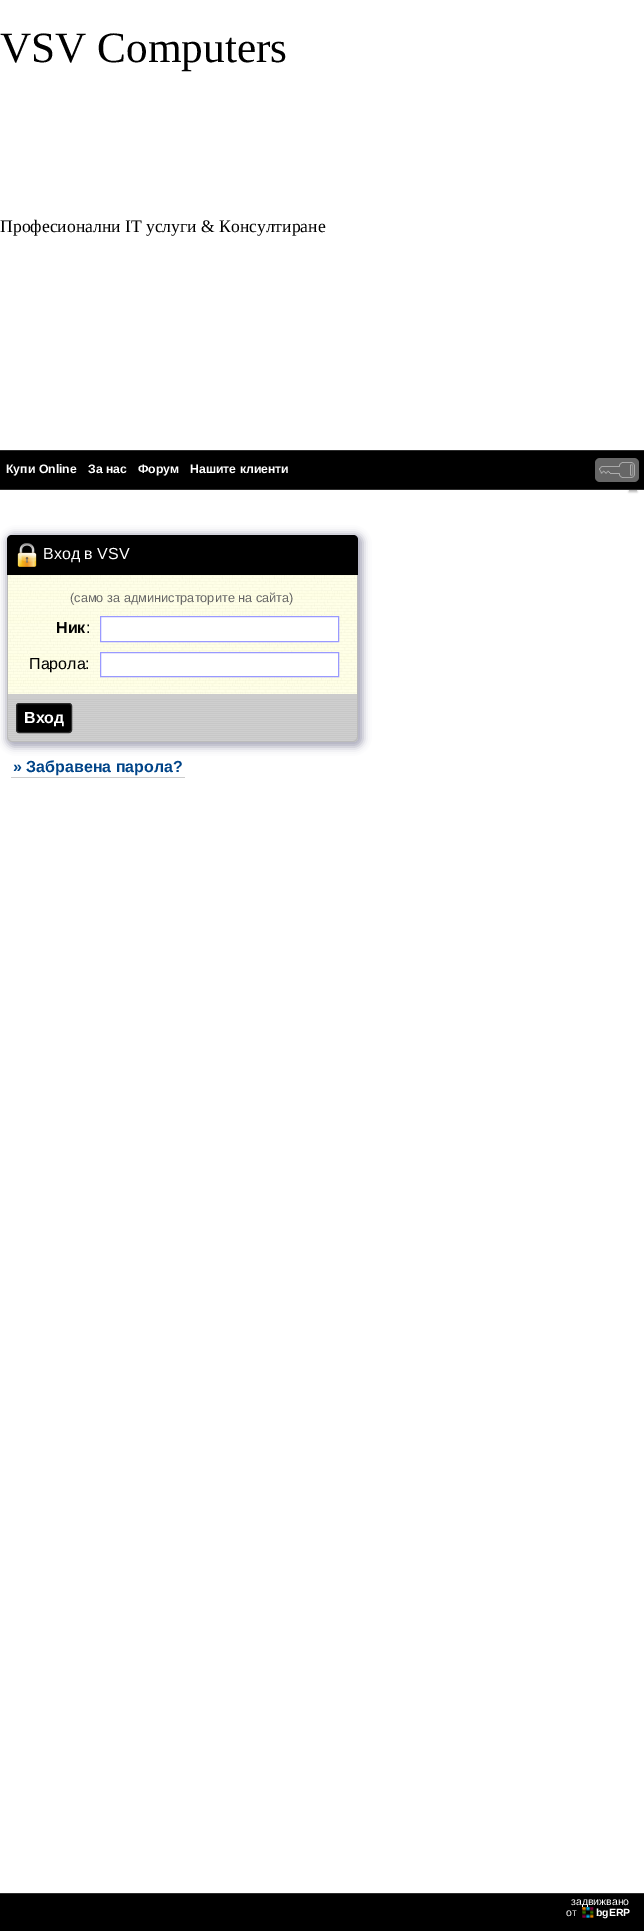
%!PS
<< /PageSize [644 1931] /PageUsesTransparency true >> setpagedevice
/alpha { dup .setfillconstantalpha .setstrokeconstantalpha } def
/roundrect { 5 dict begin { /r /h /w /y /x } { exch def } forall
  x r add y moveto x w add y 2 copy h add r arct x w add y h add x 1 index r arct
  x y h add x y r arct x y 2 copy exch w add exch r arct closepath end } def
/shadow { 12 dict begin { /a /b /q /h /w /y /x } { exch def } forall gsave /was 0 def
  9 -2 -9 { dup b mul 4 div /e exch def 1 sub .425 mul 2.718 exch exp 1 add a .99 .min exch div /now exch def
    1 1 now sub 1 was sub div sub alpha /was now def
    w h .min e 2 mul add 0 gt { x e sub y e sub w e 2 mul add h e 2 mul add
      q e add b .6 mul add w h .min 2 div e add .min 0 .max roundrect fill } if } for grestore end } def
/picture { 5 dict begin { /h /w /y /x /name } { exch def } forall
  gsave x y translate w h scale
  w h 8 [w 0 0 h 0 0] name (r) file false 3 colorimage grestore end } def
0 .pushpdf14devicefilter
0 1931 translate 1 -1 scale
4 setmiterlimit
1 setgray
0 0 644 1931 rectfill
/LiberationSerif-Regular [43.25 0 0 -43.25 0 0] selectfont
0 setgray
0 62 moveto (VSV Computers) show
/LiberationSerif-Regular [17.6 0 0 -17.6 0 0] selectfont
0 232 moveto (Професионални IT услуги & Консултиране) show
0 451 644 38 rectfill
0.176 setgray
0 450 644 1 rectfill
0 489 644 1 rectfill
/LiberationSans-Bold [12.25 0 0 -12.25 0 0] selectfont
1 setgray
6 473 moveto (Купи Online) show
88 473 moveto (За нас) show
138 473 moveto (Форум) show
190 473 moveto (Нашите клиенти) show
0.4 setgray
595 458 44 24 5 roundrect fill
(img1.rgb) 599 462 36 16 picture
0 setgray
629 491 8 1 1 1 0.3 shadow
0.733 setgray
630 490 7 1 rectfill
newpath 629.5 490.5 0.5 0 360 arc closepath fill
0.667 0.667 0.733 setrgbcolor
6 534 357 213 8 4 1 shadow
0 setgray
newpath 12 535 moveto 353 535 lineto 356 535 358 537 358 540 curveto 358 575 lineto 7 575 lineto 7 540 lineto 7 537 9 535 12 535 curveto closepath fill
(img2.rgb) 17 543 20 24 picture
/LiberationSans-Regular [16 0 0 -16 0 0] selectfont
1 setgray
43 559 moveto (Вход в VSV) show
(img3.rgb) 8 575 349 119 picture
0.733 setgray
357 575 1 119 rectfill
7 575 1 119 rectfill
/LiberationSans-Regular [12.75 0 0 -12.75 0 0] selectfont
0.4 setgray
70 602 moveto (\(само за администраторите на сайта\)) show
/LiberationSans-Bold [16 0 0 -16 0 0] selectfont
0 setgray
56 633 moveto (Ник) show
/LiberationSans-Regular [16 0 0 -16 0 0] selectfont
86 633 moveto (:) show
1 setgray
newpath 100.5 616.5 moveto 338.5 616.5 lineto 338.5 641.5 lineto 100.5 641.5 lineto closepath gsave fill grestore
0.6 0.6 1 setrgbcolor
stroke
0 setgray
29 669 moveto (Парола:) show
1 setgray
newpath 100.5 652.5 moveto 338.5 652.5 lineto 338.5 676.5 lineto 100.5 676.5 lineto closepath gsave fill grestore
0.6 0.6 1 setrgbcolor
stroke
0.8 setgray
newpath 7 694 moveto 358 694 lineto 358 737 lineto 358 740 356 742 353 742 curveto 12 742 lineto 9 742 7 740 7 737 curveto closepath fill
(img4.rgb) 7 699 351 43 picture
0.733 setgray
newpath 7 694 moveto 358 694 lineto 358 737 lineto 358 740 356 742 353 742 curveto 12 742 lineto 9 742 7 740 7 737 curveto closepath 8 694 moveto 357 694 lineto 357 737 lineto 357 739 355 741 353 741 curveto 12 741 lineto 10 741 8 739 8 737 curveto closepath eofill
0 setgray
16.5 703.5 55 29 2.5 roundrect gsave fill grestore
0.176 setgray
stroke
/LiberationSans-Bold [16 0 0 -16 0 0] selectfont
1 setgray
24 723 moveto (Вход) show
0 0.267 0.533 setrgbcolor
13 772 moveto (» Забравена парола?) show
0.8 setgray
11 777 174 1 rectfill
0 setgray
0 1894 644 37 rectfill
0.176 setgray
0 1893 644 1 rectfill
/LiberationSans-Regular [10.5 0 0 -10.5 0 0] selectfont
1 setgray
571 1905 moveto (задвижвано) show
566 1916 moveto (от) show
(img5.rgb) 582 1907 12 11 picture
/LiberationSans-Bold [10.5 0 0 -10.5 0 0] selectfont
596 1916 moveto (bgERP) show
.poppdf14devicefilter showpage
